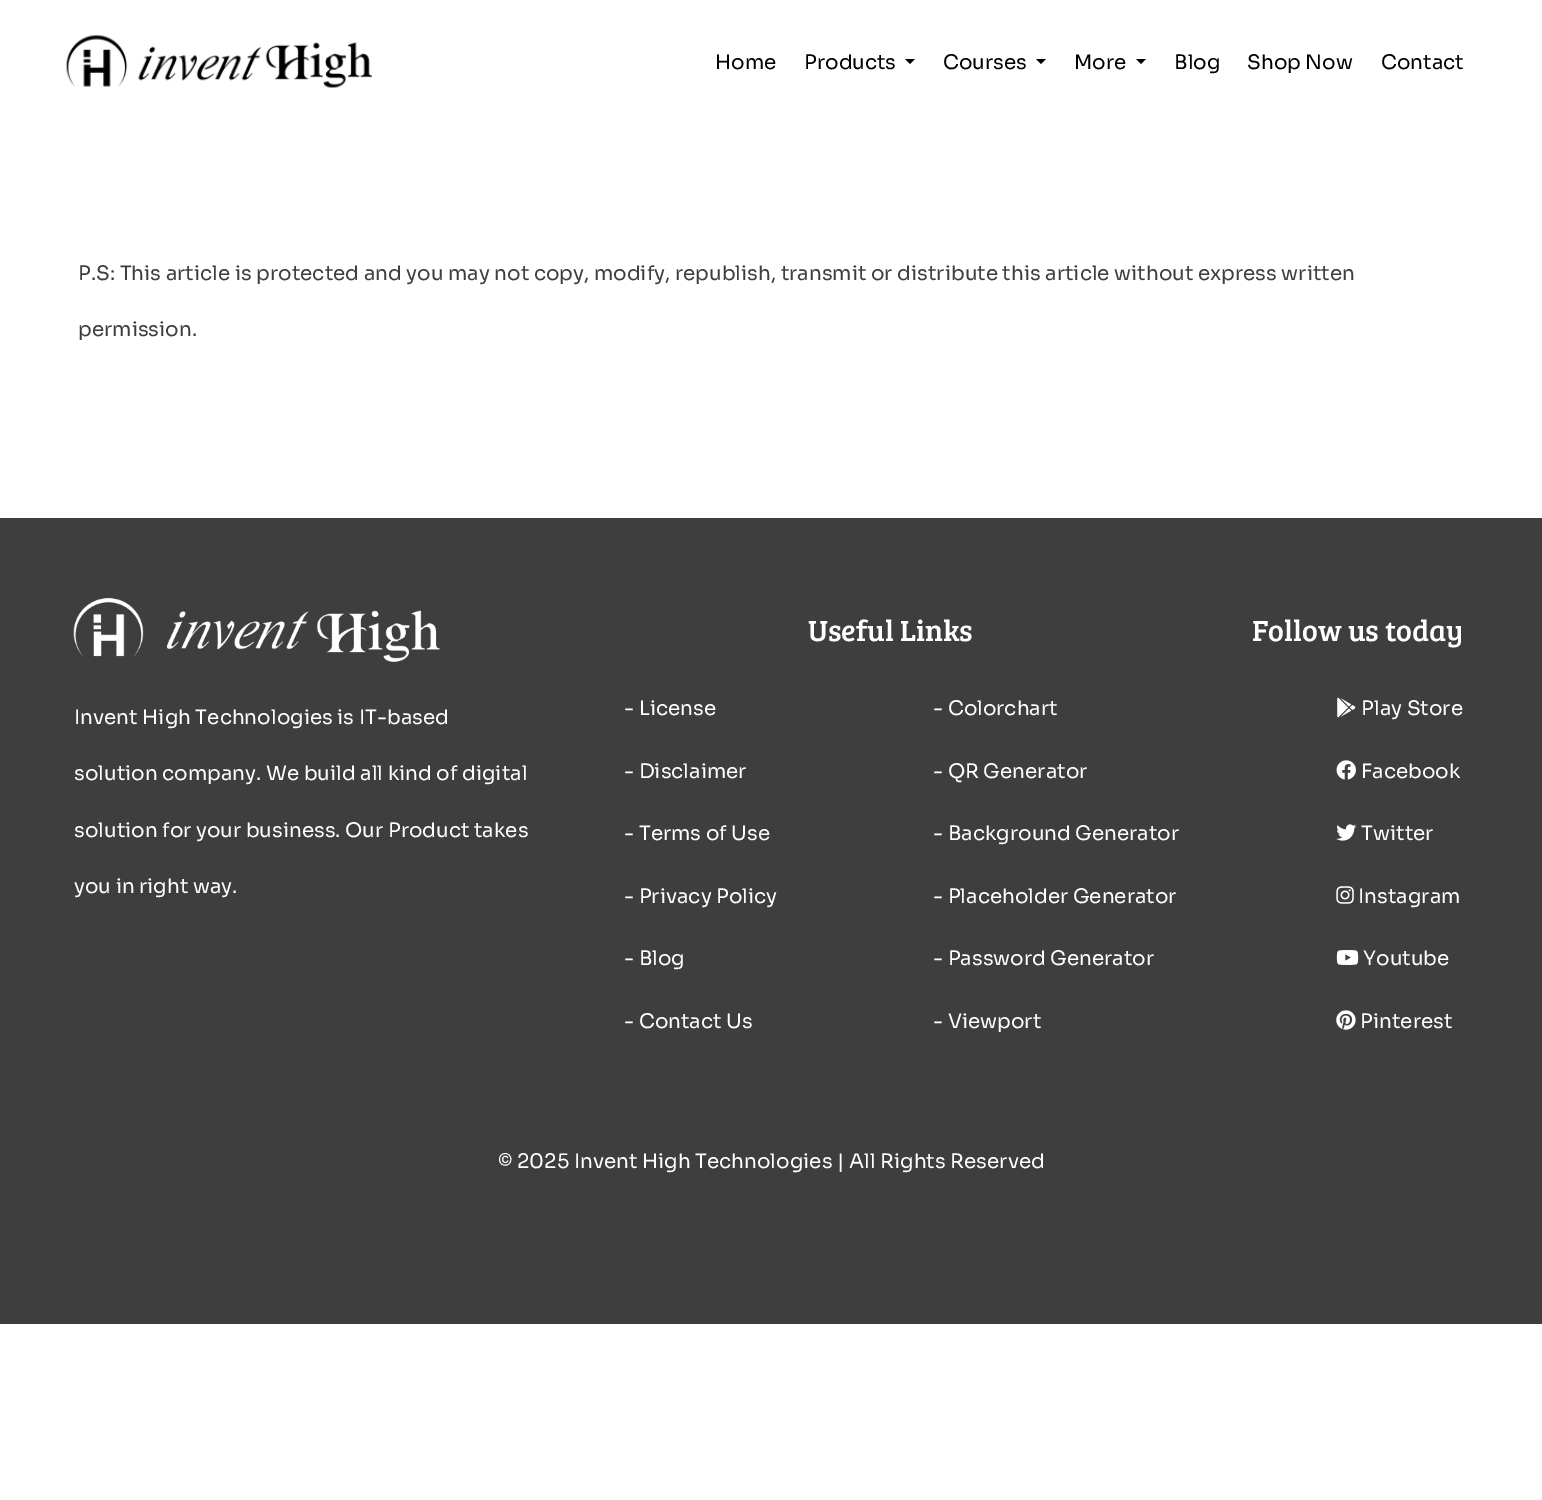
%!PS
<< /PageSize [1542 1500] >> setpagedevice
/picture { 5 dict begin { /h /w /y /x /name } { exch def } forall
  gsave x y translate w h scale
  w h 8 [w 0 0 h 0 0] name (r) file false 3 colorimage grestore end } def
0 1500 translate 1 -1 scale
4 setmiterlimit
1 setgray
0 0 1542 1500 rectfill
(img1.rgb) 66 35 306 53 picture
/Sora-Regular [20 0 0 -20 0 0] selectfont
0 setgray
715 69 moveto (Home) show
804 69 moveto (Products) show
newpath 905 59 moveto 915 59 lineto 910 64 lineto closepath fill
943 69 moveto (Courses) show
newpath 1036 59 moveto 1046 59 lineto 1041 64 lineto closepath fill
1074 69 moveto (More) show
newpath 1136 59 moveto 1146 59 lineto 1141 64 lineto closepath fill
1174 69 moveto (Blog) show
1247 69 moveto (Shop Now) show
1381 69 moveto (Contact) show
0.243 setgray
78 280 moveto (P.S: This article is protected and you may not copy, modify, republish, transmit or distribute this article without express written) show
78 336 moveto (permission.) show
0 518 1542 806 rectfill
(img2.rgb) 73 598 367 64 picture
1 setgray
74 724 moveto (Invent High Technologies is IT-based) show
74 780 moveto (solution company. We build all kind of digital) show
74 837 moveto (solution for your business. Our Product takes) show
74 893 moveto (you in right way.) show
/BreeSerif-Regular [30 0 0 -30 0 0] selectfont
808 641 moveto (Useful Links) show
/Sora-Regular [20 0 0 -20 0 0] selectfont
624 715 moveto (- License) show
624 778 moveto (- Disclaimer) show
624 840 moveto (- Terms of Use) show
624 903 moveto (- Privacy Policy) show
624 965 moveto (- Blog) show
624 1028 moveto (- Contact Us) show
933 715 moveto (- Colorchart) show
933 778 moveto (- QR Generator) show
933 840 moveto (- Background Generator) show
933 903 moveto (- Placeholder Generator) show
933 965 moveto (- Password Generator) show
933 1028 moveto (- Viewport) show
/BreeSerif-Regular [30 0 0 -30 0 0] selectfont
1252 641 moveto (Follow us today) show
(img3.rgb) 1337 697 19 21 picture
/Sora-Regular [20 0 0 -20 0 0] selectfont
1361 715 moveto (Play Store) show
(img4.rgb) 1336 760 20 20 picture
1361 778 moveto (Facebook) show
(img5.rgb) 1336 824 21 17 picture
1361 840 moveto (Twitter) show
(img6.rgb) 1336 886 18 18 picture
1358 903 moveto (Instagram) show
(img7.rgb) 1336 950 23 15 picture
1363 965 moveto (Youtube) show
(img8.rgb) 1336 1010 20 20 picture
1360 1028 moveto (Pinterest) show
498 1168 moveto (© 2025 Invent High Technologies | All Rights Reserved) show
showpage
